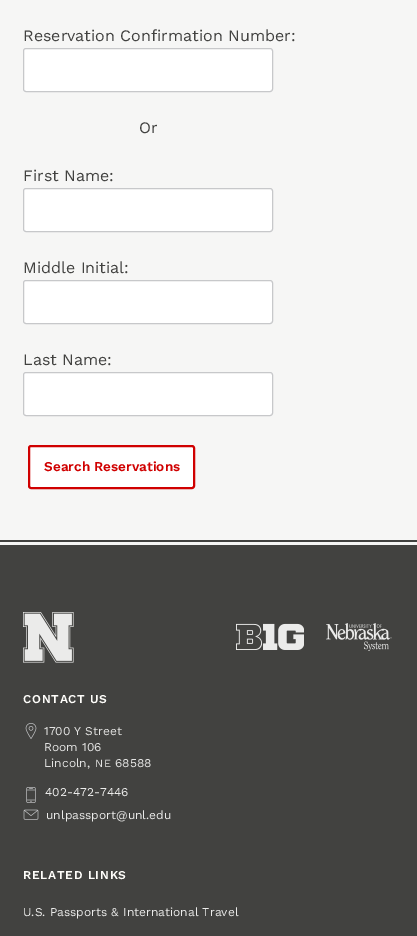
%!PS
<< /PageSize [417 936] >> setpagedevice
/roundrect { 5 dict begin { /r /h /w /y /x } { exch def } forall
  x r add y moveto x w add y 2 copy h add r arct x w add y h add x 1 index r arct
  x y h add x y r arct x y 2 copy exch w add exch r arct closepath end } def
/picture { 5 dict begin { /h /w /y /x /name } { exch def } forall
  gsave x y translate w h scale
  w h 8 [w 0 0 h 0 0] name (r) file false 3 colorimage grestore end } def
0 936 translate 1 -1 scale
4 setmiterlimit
0.259 0.259 0.251 setrgbcolor
0 0 417 936 rectfill
0.965 0.965 0.961 setrgbcolor
0 0 417 545 rectfill
/WorkSans-Regular [16 0 0 -16 0 0] selectfont
0.259 0.259 0.251 setrgbcolor
23 41 moveto (Reservation Confirmation Number:) show
1 setgray
23.5 48.5 249 43 2.5 roundrect gsave fill grestore
0.78 0.784 0.792 setrgbcolor
stroke
0.259 0.259 0.251 setrgbcolor
139 133 moveto (Or) show
23 181 moveto (First Name:) show
1 setgray
23.5 188.5 249 43 2.5 roundrect gsave fill grestore
0.78 0.784 0.792 setrgbcolor
stroke
0.259 0.259 0.251 setrgbcolor
23 273 moveto (Middle Initial:) show
1 setgray
23.5 280.5 249 43 2.5 roundrect gsave fill grestore
0.78 0.784 0.792 setrgbcolor
stroke
0.259 0.259 0.251 setrgbcolor
23 365 moveto (Last Name:) show
1 setgray
23.5 372.5 249 43 2.5 roundrect gsave fill grestore
0.78 0.784 0.792 setrgbcolor
stroke
1 setgray
29 446 165 42 2 roundrect gsave fill grestore
0.816 0 0 setrgbcolor
2 setlinewidth
stroke
/WorkSans-SemiBold [13.5 0 0 -13.5 0 0] selectfont
44 471 moveto (Search Reservations) show
0.259 0.259 0.251 setrgbcolor
0 540 417 2 rectfill
(img1.rgb) 23 612 51 51 picture
(img2.rgb) 236 623 68 27 picture
(img3.rgb) 326 623 66 28 picture
/WorkSans-SemiBold [12 0 0 -12 0 0] selectfont
0.996 0.992 0.98 setrgbcolor
23 703 moveto 0.75 0 (CONTACT US) ashow
(img4.rgb) 25 723 12 16 picture
/WorkSans-Regular [12 0 0 -12 0 0] selectfont
0.89 0.89 0.886 setrgbcolor
44 735 moveto (1700 Y Street) show
44 751 moveto (Room 106) show
44 767 moveto (Lincoln,) show
/WorkSans-Regular [11 0 0 -11 0 0] selectfont
95 767 moveto 1 0 (NE) ashow
/WorkSans-Regular [12 0 0 -12 0 0] selectfont
115 767 moveto (68588) show
(img5.rgb) 26 787 10 16 picture
0.922 0.922 0.918 setrgbcolor
45 796 moveto (402-472-7446) show
(img6.rgb) 23 809 16 11 picture
46 819 moveto (unlpassport@unl.edu) show
/WorkSans-SemiBold [12 0 0 -12 0 0] selectfont
0.996 0.992 0.98 setrgbcolor
23 879 moveto 0.75 0 (RELATED LINKS) ashow
/WorkSans-Regular [12 0 0 -12 0 0] selectfont
0.922 0.922 0.918 setrgbcolor
23 916 moveto (U.S. Passports & International Travel) show
showpage
